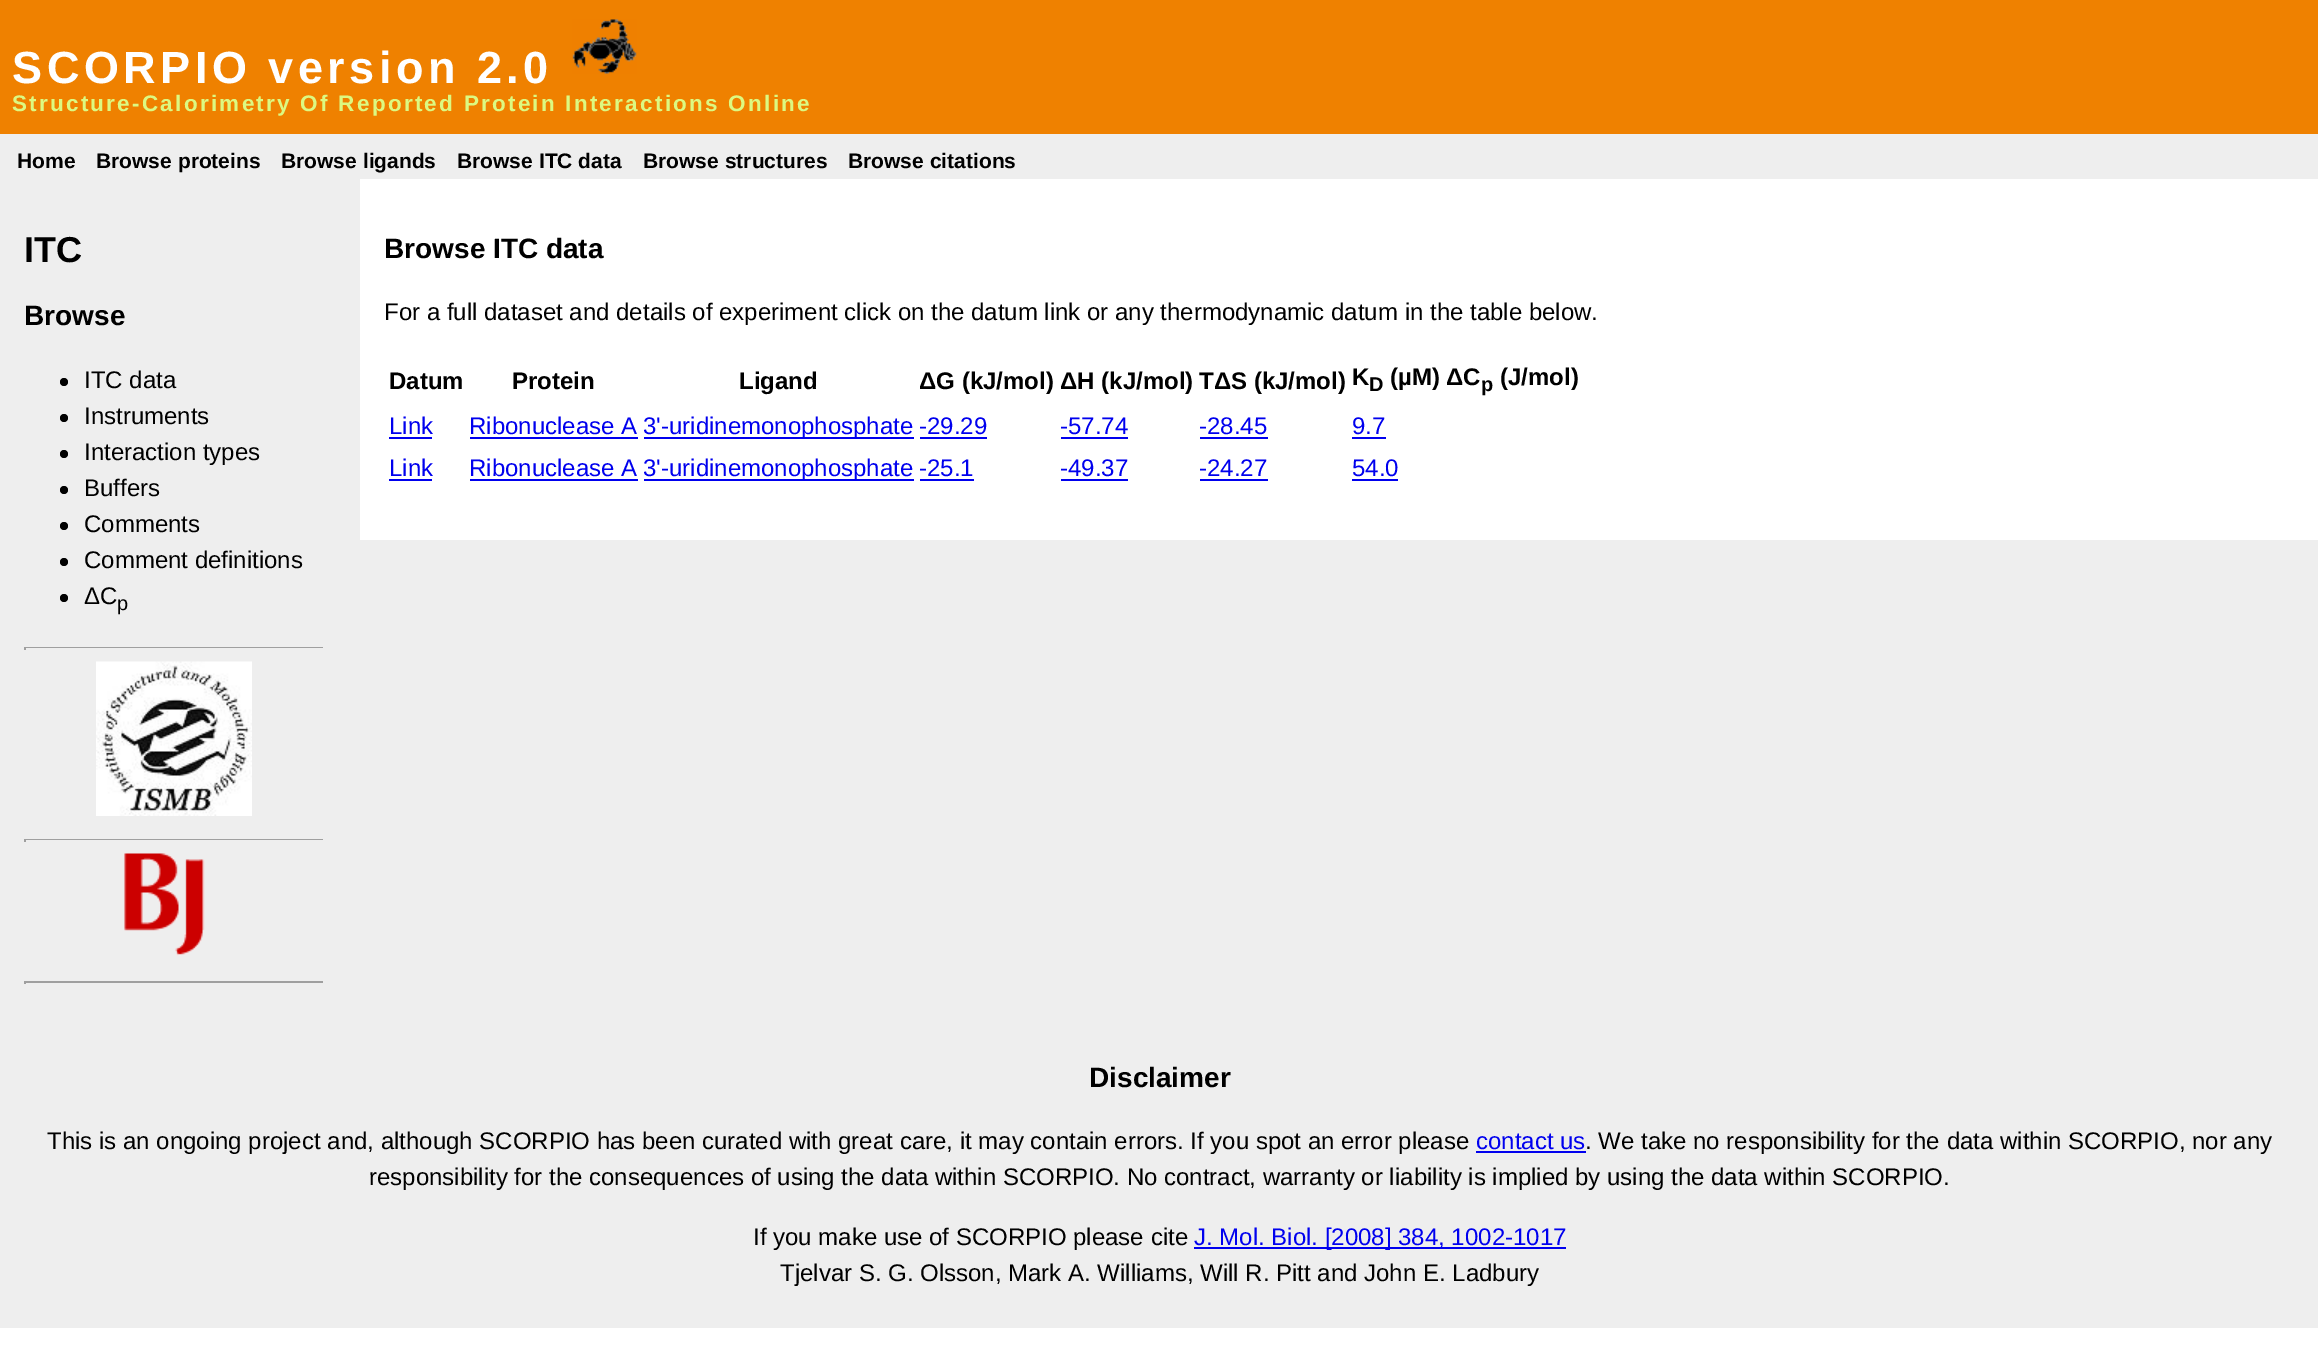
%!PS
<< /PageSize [2318 1367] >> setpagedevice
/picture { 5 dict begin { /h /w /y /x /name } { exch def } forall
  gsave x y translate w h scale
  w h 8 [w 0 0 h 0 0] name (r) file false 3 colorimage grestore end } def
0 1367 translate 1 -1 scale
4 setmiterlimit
1 setgray
0 0 2318 1367 rectfill
0.933 setgray
0 134 2318 1194 rectfill
0.937 0.506 0 setrgbcolor
0 0 2318 134 rectfill
/LiberationSans-Bold [45 0 0 -45 0 0] selectfont
1 setgray
12 83 moveto 4.5 0 (SCORPIO version 2.0) ashow
(img1.rgb) 572 19 65 55 picture
/LiberationSans-Bold [22.5 0 0 -22.5 0 0] selectfont
0.863 0.976 0.506 setrgbcolor
12 111 moveto 2.25 0 (Structure-Calorimetry Of Reported Protein Interactions Online) ashow
/LiberationSans-Bold [21 0 0 -21 0 0] selectfont
0 setgray
17 168 moveto (Home) show
96 168 moveto (Browse proteins) show
281 168 moveto (Browse ligands) show
457 168 moveto (Browse ITC data) show
643 168 moveto (Browse structures) show
848 168 moveto (Browse citations) show
/LiberationSans-Bold [36 0 0 -36 0 0] selectfont
24 262 moveto (ITC) show
/LiberationSans-Bold [28 0 0 -28 0 0] selectfont
24 325 moveto (Browse) show
newpath 64 382 4 0 360 arc closepath fill
/LiberationSans-Regular [24 0 0 -24 0 0] selectfont
84 388 moveto (ITC data) show
newpath 64 418 4 0 360 arc closepath fill
84 424 moveto (Instruments) show
newpath 64 454 4 0 360 arc closepath fill
84 460 moveto (Interaction types) show
newpath 64 490 4 0 360 arc closepath fill
84 496 moveto (Buffers) show
newpath 64 526 4 0 360 arc closepath fill
84 532 moveto (Comments) show
newpath 64 562 4 0 360 arc closepath fill
84 568 moveto (Comment definitions) show
newpath 64 598 4 0 360 arc closepath fill
84 604 moveto (ΔC) show
/LiberationSans-Regular [20 0 0 -20 0 0] selectfont
117 610 moveto (p) show
0.624 setgray
24 647 300 1 rectfill
0.933 setgray
323 647 1 3 rectfill
0.624 setgray
24 647 2 3 rectfill
(img2.rgb) 96 661 156 155 picture
24 839 300 1 rectfill
0.933 setgray
323 839 1 3 rectfill
0.624 setgray
24 839 2 3 rectfill
(img3.rgb) 124 853 81 103 picture
24 981 300 2 rectfill
0.933 setgray
323 981 1 3 rectfill
0.624 setgray
24 981 2 3 rectfill
1 setgray
360 179 1958 361 rectfill
/LiberationSans-Bold [28 0 0 -28 0 0] selectfont
0 setgray
384 258 moveto (Browse ITC data) show
/LiberationSans-Regular [24 0 0 -24 0 0] selectfont
384 320 moveto (For a full dataset and details of experiment click on the datum link or any thermodynamic datum in the table below.) show
/LiberationSans-Bold [24 0 0 -24 0 0] selectfont
389 389 moveto (Datum) show
512 389 moveto (Protein) show
739 389 moveto (Ligand) show
919 389 moveto (ΔG \(kJ/mol\)) show
1060 389 moveto (ΔH \(kJ/mol\)) show
1199 389 moveto (TΔS \(kJ/mol\)) show
1352 385 moveto (K) show
/LiberationSans-Bold [20 0 0 -20 0 0] selectfont
1369 391 moveto (D) show
/LiberationSans-Bold [24 0 0 -24 0 0] selectfont
1390 385 moveto (\(µM\)) show
1446 385 moveto (ΔC) show
1500 385 moveto (\(J/mol\)) show
/LiberationSans-Bold [20 0 0 -20 0 0] selectfont
1481 391 moveto (p) show
/LiberationSans-Regular [24 0 0 -24 0 0] selectfont
0 0 0.933 setrgbcolor
389 434 moveto (Link) show
389 437 43 2 rectfill
469 434 moveto (Ribonuclease A) show
470 437 168 2 rectfill
644 437 270 2 rectfill
643 434 moveto (3'-uridinemonophosphate) show
919 434 moveto (-29.29) show
920 437 67 2 rectfill
1060 434 moveto (-57.74) show
1061 437 67 2 rectfill
1199 434 moveto (-28.45) show
1200 437 68 2 rectfill
1352 434 moveto (9.7) show
1352 437 34 2 rectfill
389 476 moveto (Link) show
389 479 43 2 rectfill
469 476 moveto (Ribonuclease A) show
470 479 168 2 rectfill
644 479 270 2 rectfill
643 476 moveto (3'-uridinemonophosphate) show
919 476 moveto (-25.1) show
920 479 54 2 rectfill
1060 476 moveto (-49.37) show
1061 479 67 2 rectfill
1199 476 moveto (-24.27) show
1200 479 68 2 rectfill
1352 476 moveto (54.0) show
1352 479 46 2 rectfill
/LiberationSans-Bold [28 0 0 -28 0 0] selectfont
0 setgray
1089 1087 moveto (Disclaimer) show
/LiberationSans-Regular [24 0 0 -24 0 0] selectfont
47 1149 moveto (This is an ongoing project and, although SCORPIO has been curated with great care, it may contain errors. If you spot an error please) show
0 0 0.933 setrgbcolor
1476 1149 moveto (contact us) show
1476 1151 110 2 rectfill
0 setgray
1585 1149 moveto (. We take no responsibility for the data within SCORPIO, nor any) show
369 1185 moveto (responsibility for the consequences of using the data within SCORPIO. No contract, warranty or liability is implied by using the data within SCORPIO.) show
753 1245 moveto (If you make use of SCORPIO please cite) show
0 0 0.933 setrgbcolor
1194 1247 372 2 rectfill
1194 1245 moveto (J. Mol. Biol. [2008] 384, 1002-1017) show
0 setgray
780 1281 moveto (Tjelvar S. G. Olsson, Mark A. Williams, Will R. Pitt and John E. Ladbury) show
showpage
